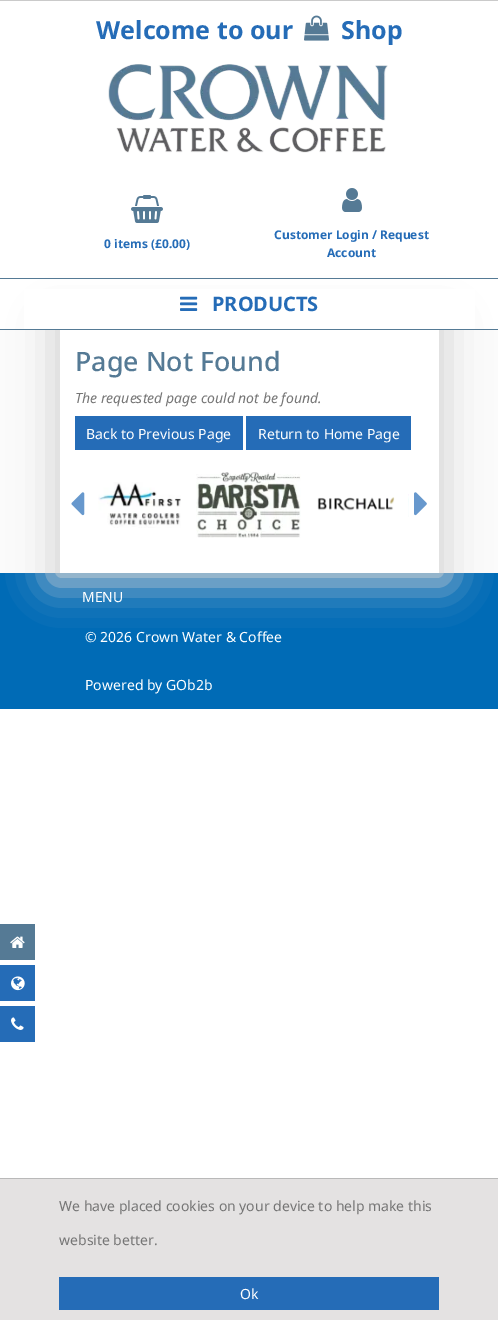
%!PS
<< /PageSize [498 1320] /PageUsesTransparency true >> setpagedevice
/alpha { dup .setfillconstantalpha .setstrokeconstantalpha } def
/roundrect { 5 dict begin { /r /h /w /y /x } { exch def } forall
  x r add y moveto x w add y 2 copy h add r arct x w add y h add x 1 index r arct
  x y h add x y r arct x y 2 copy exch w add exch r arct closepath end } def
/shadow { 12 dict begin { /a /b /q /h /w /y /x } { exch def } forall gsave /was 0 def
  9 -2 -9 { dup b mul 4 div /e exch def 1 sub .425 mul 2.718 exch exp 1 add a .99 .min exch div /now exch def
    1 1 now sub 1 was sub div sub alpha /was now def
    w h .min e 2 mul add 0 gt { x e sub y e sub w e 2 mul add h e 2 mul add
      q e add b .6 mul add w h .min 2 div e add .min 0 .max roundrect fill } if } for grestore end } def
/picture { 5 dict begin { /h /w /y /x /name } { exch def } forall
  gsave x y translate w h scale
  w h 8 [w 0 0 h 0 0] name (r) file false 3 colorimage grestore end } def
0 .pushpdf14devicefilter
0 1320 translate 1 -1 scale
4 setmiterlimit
1 setgray
0 0 498 1320 rectfill
0.792 setgray
0 0 498 1 rectfill
/NotoSans-Bold [25 0 0 -25 0 0] selectfont
0.145 0.424 0.718 setrgbcolor
96 39 moveto (Welcome to our) show
(img1.rgb) 304 15 25 26 picture
341 39 moveto (Shop) show
(img2.rgb) 108 64 280 89 picture
(img3.rgb) 131 195 32 28 picture
/NotoSans-Bold [12 0 0 -12 0 0] selectfont
104 248 moveto (0 items \(£0.00\)) show
(img4.rgb) 342 188 20 24 picture
274 239 moveto (Customer Login / Request) show
327 257 moveto (Account) show
0.984 setgray
0 330 498 243 rectfill
0 0.42 0.714 setrgbcolor
0 573 498 136 rectfill
0.839 setgray
50 320 399 263 0 20 1 shadow
1 setgray
24 289 451 40 rectfill
0.333 0.478 0.584 setrgbcolor
0 278 498 1 rectfill
0 329 498 1 rectfill
(img5.rgb) 180 296 18 15 picture
/NotoSans-Bold [20 0 0 -20 0 0] selectfont
0.145 0.424 0.718 setrgbcolor
212 311 moveto (PRODUCTS) show
1 setgray
60 330 379 243 rectfill
/NotoSans-Medium [26.75 0 0 -26.75 0 0] selectfont
0.333 0.478 0.584 setrgbcolor
75 371 moveto (Page Not Found) show
/NotoSans-Italic [14 0 0 -14 0 0] selectfont
0.459 setgray
75 403 moveto (The requested page could not be found.) show
0.145 0.424 0.718 setrgbcolor
75 416 168 34 rectfill
/NotoSans-Regular [14 0 0 -14 0 0] selectfont
1 setgray
86 439 moveto (Back to Previous Page) show
0.145 0.424 0.718 setrgbcolor
246 416 165 34 rectfill
1 setgray
258 439 moveto (Return to Home Page) show
(img6.rgb) 98 482 83 46 picture
(img7.rgb) 196 472 105 66 picture
(img8.rgb) 317 497 78 14 picture
(img9.rgb) 408 494 1 23 picture
(img10.rgb) 71 492 14 24 picture
(img11.rgb) 414 492 13 24 picture
0.333 0.478 0.584 setrgbcolor
0 924 35 36 rectfill
(img12.rgb) 10 936 15 12 picture
0.145 0.424 0.718 setrgbcolor
0 965 35 36 rectfill
(img13.rgb) 11 976 14 15 picture
0 1006 35 36 rectfill
(img14.rgb) 11 1017 13 13 picture
1 setgray
82 602 moveto (MENU) show
85 642 moveto (© 2026 Crown Water & Coffee) show
85 690 moveto (Powered by GOb2b) show
0.894 0.886 0.886 setrgbcolor
0 1179 498 141 rectfill
0.725 setgray
0 1178 498 1 rectfill
0.459 setgray
59 1211 moveto (We have placed cookies on your device to help make this) show
59 1245 moveto (website better.) show
0.145 0.424 0.718 setrgbcolor
59 1277 380 33 rectfill
1 setgray
240 1299 moveto (Ok) show
.poppdf14devicefilter showpage
